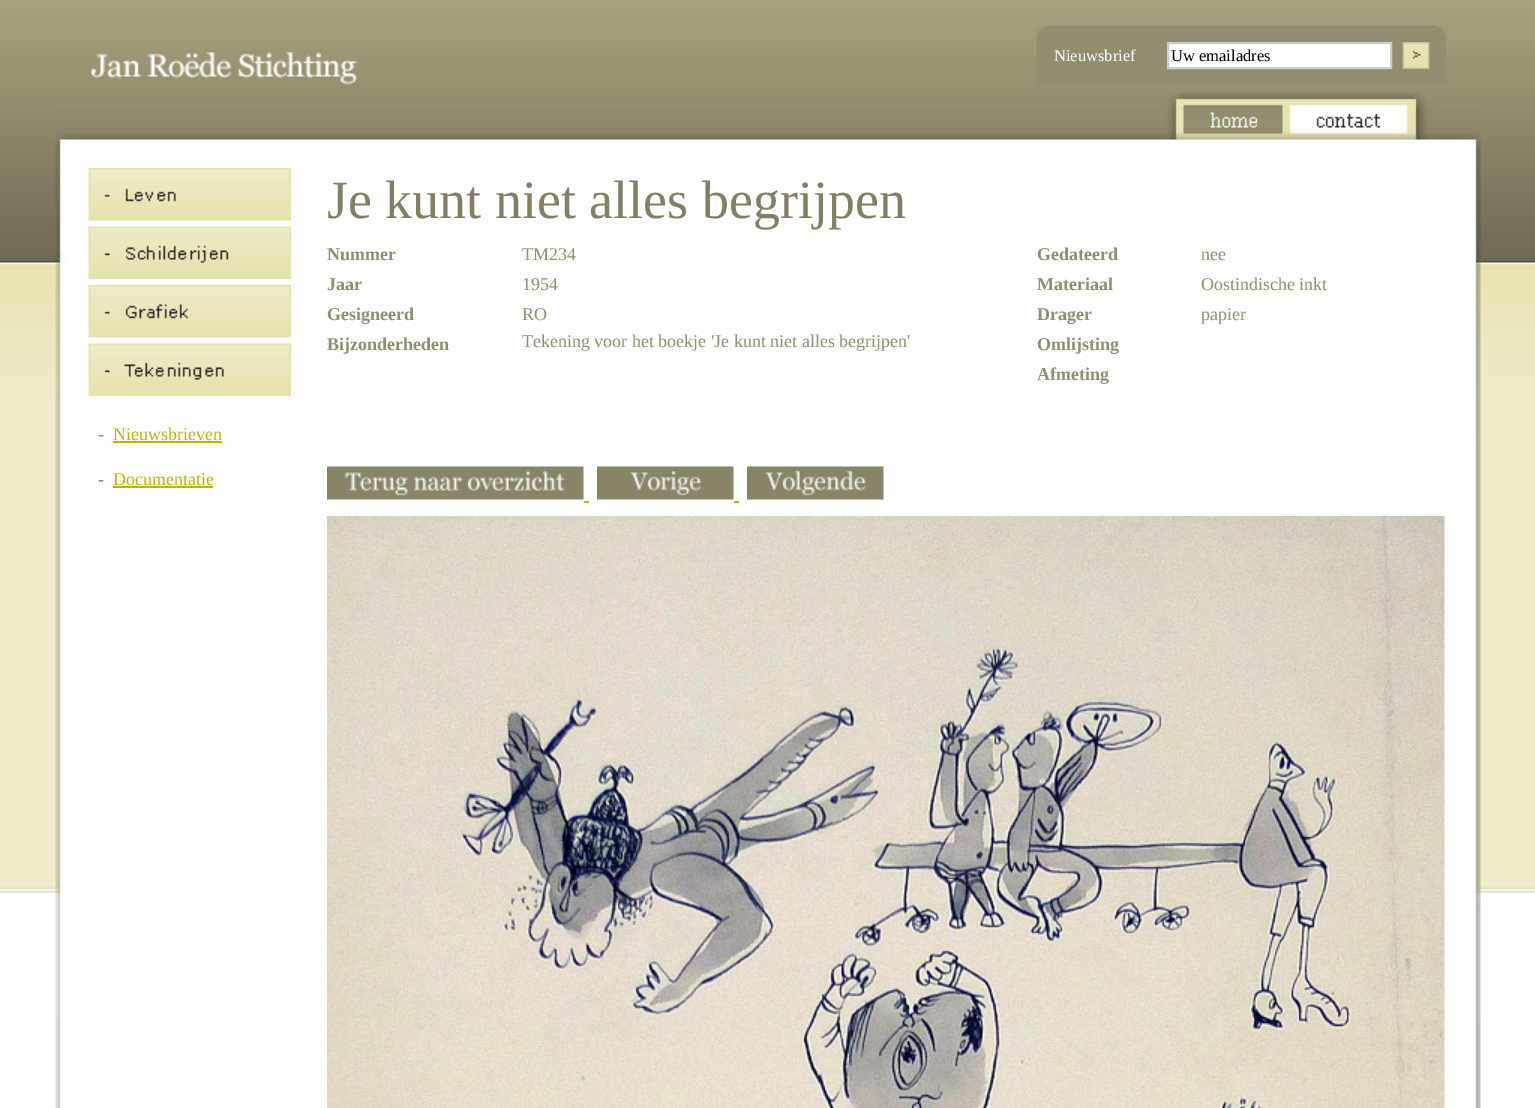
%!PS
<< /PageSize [1535 1108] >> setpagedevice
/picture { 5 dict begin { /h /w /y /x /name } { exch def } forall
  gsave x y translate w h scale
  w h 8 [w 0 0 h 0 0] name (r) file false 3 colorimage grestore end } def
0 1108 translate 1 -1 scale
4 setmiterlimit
1 setgray
0 0 1535 1108 rectfill
(img1.rgb) 0 0 1535 893 picture
(img2.rgb) 55 92 1426 1016 picture
(img3.rgb) 91 52 267 33 picture
(img4.rgb) 1036 25 410 59 picture
/LiberationSerif-Regular [16.5 0 0 -16.5 0 0] selectfont
1054 61 moveto (Nieuwsbrief) show
newpath 1168 43 moveto 1391 43 lineto 1391 68 lineto 1168 68 lineto closepath gsave fill grestore
0.8 setgray
2 setlinewidth
stroke
0 setgray
1171 61 moveto (Uw emailadres) show
(img5.rgb) 1402 42 28 27 picture
(img6.rgb) 1210 112 48 16 picture
(img7.rgb) 1316 113 65 15 picture
/LiberationSerif-Regular [54 0 0 -54 0 0] selectfont
0.518 0.498 0.392 setrgbcolor
327 218 moveto (Je kunt niet alles begrijpen) show
/LiberationSerif-Bold [18 0 0 -18 0 0] selectfont
0.569 0.557 0.435 setrgbcolor
327 260 moveto (Nummer) show
/LiberationSerif-Regular [18 0 0 -18 0 0] selectfont
522 260 moveto (TM234) show
/LiberationSerif-Bold [18 0 0 -18 0 0] selectfont
1037 260 moveto (Gedateerd) show
/LiberationSerif-Regular [18 0 0 -18 0 0] selectfont
1201 260 moveto (nee) show
/LiberationSerif-Bold [18 0 0 -18 0 0] selectfont
327 290 moveto (Jaar) show
/LiberationSerif-Regular [18 0 0 -18 0 0] selectfont
522 290 moveto (1954) show
/LiberationSerif-Bold [18 0 0 -18 0 0] selectfont
1037 290 moveto (Materiaal) show
/LiberationSerif-Regular [18 0 0 -18 0 0] selectfont
1201 290 moveto (Oostindische inkt) show
/LiberationSerif-Bold [18 0 0 -18 0 0] selectfont
327 320 moveto (Gesigneerd) show
/LiberationSerif-Regular [18 0 0 -18 0 0] selectfont
522 320 moveto (RO) show
/LiberationSerif-Bold [18 0 0 -18 0 0] selectfont
1037 320 moveto (Drager) show
/LiberationSerif-Regular [18 0 0 -18 0 0] selectfont
1201 320 moveto (papier) show
/LiberationSerif-Bold [18 0 0 -18 0 0] selectfont
327 350 moveto (Bijzonderheden) show
/LiberationSerif-Regular [18 0 0 -18 0 0] selectfont
522 347 moveto (Tekening voor het boekje 'Je kunt niet alles begrijpen') show
/LiberationSerif-Bold [18 0 0 -18 0 0] selectfont
1037 350 moveto (Omlijsting) show
1037 380 moveto (Afmeting) show
(img8.rgb) 88 168 203 53 picture
(img9.rgb) 88 226 203 53 picture
(img10.rgb) 88 285 203 53 picture
(img11.rgb) 88 343 203 53 picture
/LiberationSerif-Regular [18 0 0 -18 0 0] selectfont
98 440 moveto (-) show
0.737 0.698 0.063 setrgbcolor
113 440 moveto (Nieuwsbrieven) show
113 441 109 2 rectfill
0.569 0.557 0.435 setrgbcolor
98 485 moveto (-) show
0.737 0.698 0.063 setrgbcolor
113 485 moveto (Documentatie) show
113 486 100 2 rectfill
(img12.rgb) 327 466 257 34 picture
(img13.rgb) 597 466 137 34 picture
(img14.rgb) 747 466 137 34 picture
584 501 5 2 rectfill
734 501 5 2 rectfill
(img15.rgb) 327 516 1118 592 picture
showpage
